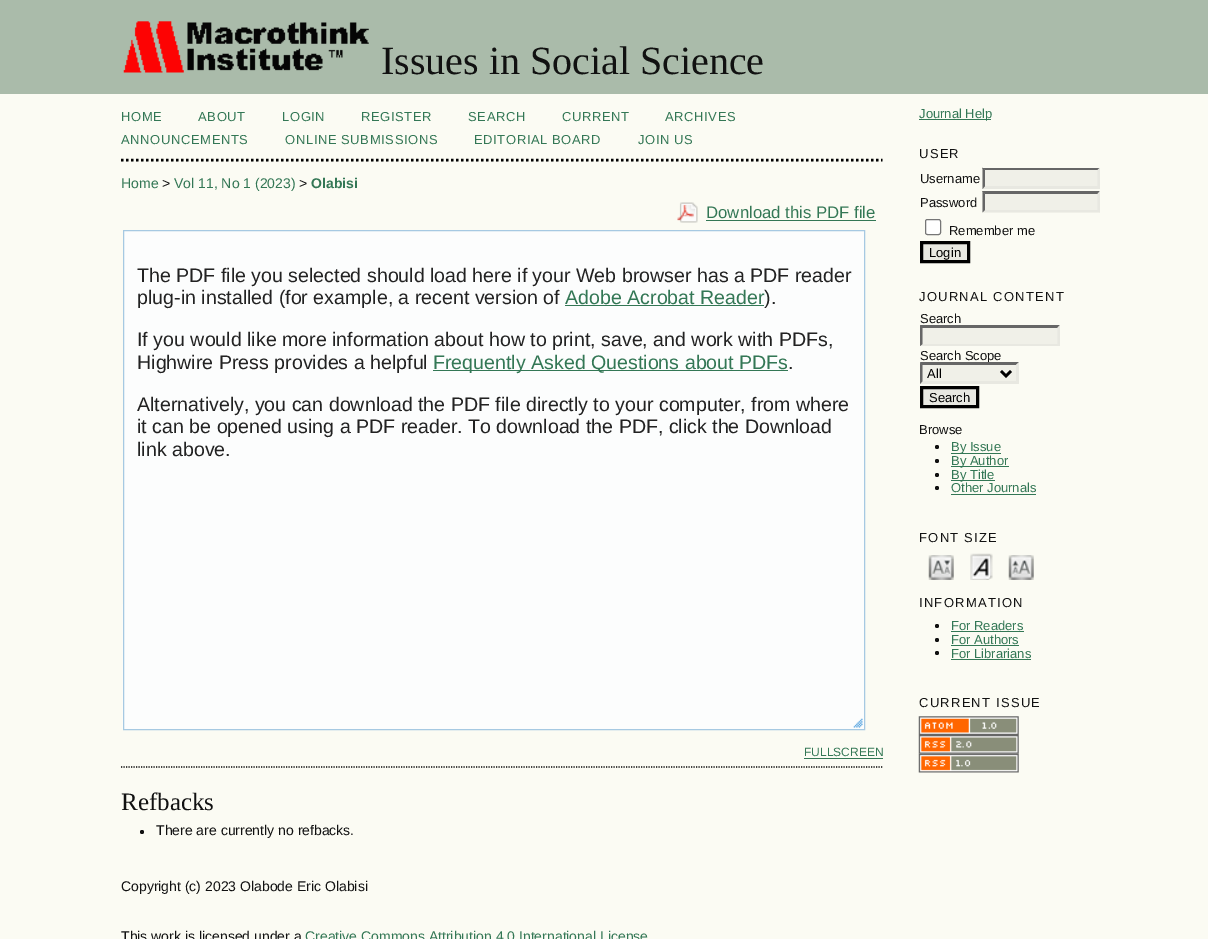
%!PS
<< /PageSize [1208 939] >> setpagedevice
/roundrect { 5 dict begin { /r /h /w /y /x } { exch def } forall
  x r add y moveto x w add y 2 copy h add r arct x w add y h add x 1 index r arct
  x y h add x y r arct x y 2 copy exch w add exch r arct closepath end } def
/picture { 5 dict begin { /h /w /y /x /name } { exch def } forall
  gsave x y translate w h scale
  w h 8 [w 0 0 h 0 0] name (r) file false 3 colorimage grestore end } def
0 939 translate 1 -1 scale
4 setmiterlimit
0.984 0.984 0.953 setrgbcolor
0 0 1208 939 rectfill
0.667 0.733 0.667 setrgbcolor
0 0 1208 94 rectfill
(img1.rgb) 123 21 246 52 picture
/LiberationSerif-Regular [40 0 0 -40 0 0] selectfont
0.067 setgray
381 74 moveto (Issues in Social Science) show
0 setgray
2.5 setlinewidth
[2.5 2.5] 0 setdash
newpath 121 160 moveto 882.5 160 lineto stroke
/LiberationSans-Regular [13 0 0 -13 0 0] selectfont
0.2 0.467 0.333 setrgbcolor
121 121 moveto 0.6 0 (HOME) ashow
198 121 moveto 0.6 0 (ABOUT) ashow
282 121 moveto 0.6 0 (LOGIN) ashow
361 121 moveto 0.6 0 (REGISTER) ashow
468 121 moveto 0.6 0 (SEARCH) ashow
562 121 moveto 0.6 0 (CURRENT) ashow
665 121 moveto 0.6 0 (ARCHIVES) ashow
121 144 moveto 0.6 0 (ANNOUNCEMENTS) ashow
285 144 moveto 0.6 0 (ONLINE SUBMISSIONS) ashow
474 144 moveto 0.6 0 (EDITORIAL BOARD) ashow
638 144 moveto 0.6 0 (JOIN US) ashow
/LiberationSans-Regular [14 0 0 -14 0 0] selectfont
121 188 moveto (Home) show
0.067 setgray
162 188 moveto (>) show
0.2 0.467 0.333 setrgbcolor
174 188 moveto (Vol 11, No 1 \(2023\)) show
0.067 setgray
299 188 moveto (>) show
/LiberationSans-Bold [14 0 0 -14 0 0] selectfont
0.2 0.467 0.333 setrgbcolor
311 188 moveto (Olabisi) show
(img2.rgb) 677 202 21 21 picture
/LiberationSans-Regular [16.75 0 0 -16.75 0 0] selectfont
706 218 moveto (Download this PDF file) show
706 220 170 1 rectfill
0.988 0.992 0.992 setrgbcolor
newpath 123.5 230.5 moveto 864.5 230.5 lineto 864.5 729.5 lineto 123.5 729.5 lineto closepath gsave fill grestore
0.651 0.788 0.886 setrgbcolor
1 setlinewidth
[] 0 setdash
stroke
(img3.rgb) 122 604 1 125 picture
/LiberationSans-Regular [19.6 0 0 -19.6 0 0] selectfont
0.133 setgray
137 282 moveto (The PDF file you selected should load here if your Web browser has a PDF reader) show
137 304 moveto (plug-in installed \(for example, a recent version of) show
0.2 0.467 0.333 setrgbcolor
565 304 moveto (Adobe Acrobat Reader) show
565 305 199 1 rectfill
0.133 setgray
764 304 moveto (\).) show
137 346 moveto (If you would like more information about how to print, save, and work with PDFs,) show
137 369 moveto (Highwire Press provides a helpful) show
0.2 0.467 0.333 setrgbcolor
433 370 355 1 rectfill
433 369 moveto (Frequently Asked Questions about PDFs) show
0.133 setgray
788 369 moveto (.) show
137 411 moveto (Alternatively, you can download the PDF file directly to your computer, from where) show
137 433 moveto (it can be opened using a PDF reader. To download the PDF, click the Download) show
137 456 moveto (link above.) show
(img4.rgb) 853 718 10 10 picture
/LiberationSans-Regular [12 0 0 -12 0 0] selectfont
0.2 0.467 0.333 setrgbcolor
804 756 moveto (FULLSCREEN) show
804 758 79 1 rectfill
0 setgray
1.2 setlinewidth
[1.25 1.25] 0 setdash
newpath 121 767 moveto 882.5 767 lineto stroke
/LiberationSerif-Regular [25 0 0 -25 0 0] selectfont
0.067 setgray
121 810 moveto (Refbacks) show
newpath 142 832 2 0 360 arc closepath fill
/LiberationSans-Regular [14 0 0 -14 0 0] selectfont
156 835 moveto (There are currently no refbacks.) show
121 891 moveto (Copyright \(c\) 2023 Olabode Eric Olabisi) show
121 941 moveto (This work is licensed under a) show
0.2 0.467 0.333 setrgbcolor
305 941 moveto (Creative Commons Attribution 4.0 International License) show
919 119 72 1 rectfill
/LiberationSans-Regular [13 0 0 -13 0 0] selectfont
919 118 moveto (Journal Help) show
0.067 setgray
919 158 moveto 1.25 0 (USER) ashow
920 183 moveto (Username) show
0.941 0.941 0.91 setrgbcolor
983 168 117 21 rectfill
0.4 setgray
newpath 982 168 moveto 1100 168 lineto 1098 170 lineto 985 170 lineto closepath fill
0.91 0.91 0.882 setrgbcolor
newpath 1100 167.5 moveto 1100 189 lineto 1097.5 186 lineto 1097.5 170 lineto closepath fill
newpath 1100 189 moveto 982 189 lineto 985 186 lineto 1098 186 lineto closepath fill
0.4 setgray
newpath 982.5 189 moveto 982.5 167.5 lineto 985 170 lineto 985 186 lineto closepath fill
0.067 setgray
920 207 moveto (Password) show
0.941 0.941 0.91 setrgbcolor
983 191 117 22 rectfill
0.4 setgray
newpath 982 191 moveto 1100 191 lineto 1098 194 lineto 985 194 lineto closepath fill
0.91 0.91 0.882 setrgbcolor
newpath 1100 191 moveto 1100 212.5 lineto 1097.5 210 lineto 1097.5 194 lineto closepath fill
newpath 1100 212 moveto 982 212 lineto 985 210 lineto 1098 210 lineto closepath fill
0.4 setgray
newpath 982.5 212.5 moveto 982.5 191 lineto 985 194 lineto 985 210 lineto closepath fill
1 setgray
925.5 219.5 15 15 2 roundrect gsave fill grestore
0.463 setgray
1 setlinewidth
[] 0 setdash
stroke
0.067 setgray
949 235 moveto (Remember me) show
0.91 0.91 0.882 setrgbcolor
newpath 921.5 242.5 moveto 968.5 242.5 lineto 968.5 261.5 lineto 921.5 261.5 lineto closepath gsave fill grestore
0 setgray
3 setlinewidth
stroke
929 257 moveto (Login) show
0.067 setgray
919 301 moveto 1.25 0 (JOURNAL CONTENT) ashow
920 323 moveto (Search) show
0.941 0.941 0.91 setrgbcolor
920 325 140 21 rectfill
0.4 setgray
newpath 920 325 moveto 1060 325 lineto 1058 328 lineto 922 328 lineto closepath fill
0.91 0.91 0.882 setrgbcolor
newpath 1060 325 moveto 1060 346 lineto 1057.5 344 lineto 1057.5 327.5 lineto closepath fill
newpath 1060 346 moveto 920 346 lineto 922 344 lineto 1058 344 lineto closepath fill
0.4 setgray
newpath 920 346 moveto 920 325 lineto 922.5 327.5 lineto 922.5 344 lineto closepath fill
0.067 setgray
920 360 moveto (Search Scope) show
0.941 0.941 0.91 setrgbcolor
920 363 99 21 rectfill
0.4 setgray
newpath 920 362 moveto 1019 362 lineto 1016 365 lineto 922 365 lineto closepath fill
0.91 0.91 0.882 setrgbcolor
newpath 1019 362.5 moveto 1019 384 lineto 1016 381 lineto 1016 365 lineto closepath fill
newpath 1019 384 moveto 920 384 lineto 922 381 lineto 1016 381 lineto closepath fill
0.4 setgray
newpath 920 384 moveto 920 362.5 lineto 922.5 365 lineto 922.5 381 lineto closepath fill
0 setgray
2.5 setlinewidth
newpath 1001 371 moveto 1006 376 lineto 1011 371 lineto stroke
927 378 moveto (All) show
0.91 0.91 0.882 setrgbcolor
newpath 921.5 387.5 moveto 977.5 387.5 lineto 977.5 406.5 lineto 921.5 406.5 lineto closepath gsave fill grestore
0 setgray
3 setlinewidth
stroke
929 402 moveto (Search) show
0.067 setgray
919 434 moveto (Browse) show
newpath 937 447 2 0 360 arc closepath fill
0.2 0.467 0.333 setrgbcolor
951 453 50 1 rectfill
951 451 moveto (By Issue) show
0.067 setgray
newpath 937 461 2 0 360 arc closepath fill
0.2 0.467 0.333 setrgbcolor
951 466 58 1 rectfill
951 465 moveto (By Author) show
0.067 setgray
newpath 937 475 2 0 360 arc closepath fill
0.2 0.467 0.333 setrgbcolor
951 480 44 1 rectfill
951 479 moveto (By Title) show
0.067 setgray
newpath 937 488 2 0 360 arc closepath fill
0.2 0.467 0.333 setrgbcolor
951 492 moveto (Other Journals) show
951 494 85 1 rectfill
0.067 setgray
919 542 moveto 1.25 0 (FONT SIZE) ashow
(img5.rgb) 928 555 26 25 picture
(img6.rgb) 970 553 23 27 picture
(img7.rgb) 1008 555 26 25 picture
919 607 moveto 1.25 0 (INFORMATION) ashow
newpath 937 626 2 0 360 arc closepath fill
0.2 0.467 0.333 setrgbcolor
951 630 moveto (For Readers) show
951 631 73 1 rectfill
0.067 setgray
newpath 937 640 2 0 360 arc closepath fill
0.2 0.467 0.333 setrgbcolor
951 644 moveto (For Authors) show
951 645 68 1 rectfill
0.067 setgray
newpath 937 653 2 0 360 arc closepath fill
0.2 0.467 0.333 setrgbcolor
951 658 moveto (For Librarians) show
951 659 80 1 rectfill
0.067 setgray
919 707 moveto 1.25 0 (CURRENT ISSUE) ashow
(img8.rgb) 918 716 101 19 picture
(img9.rgb) 918 735 101 19 picture
(img10.rgb) 918 753 101 20 picture
showpage
